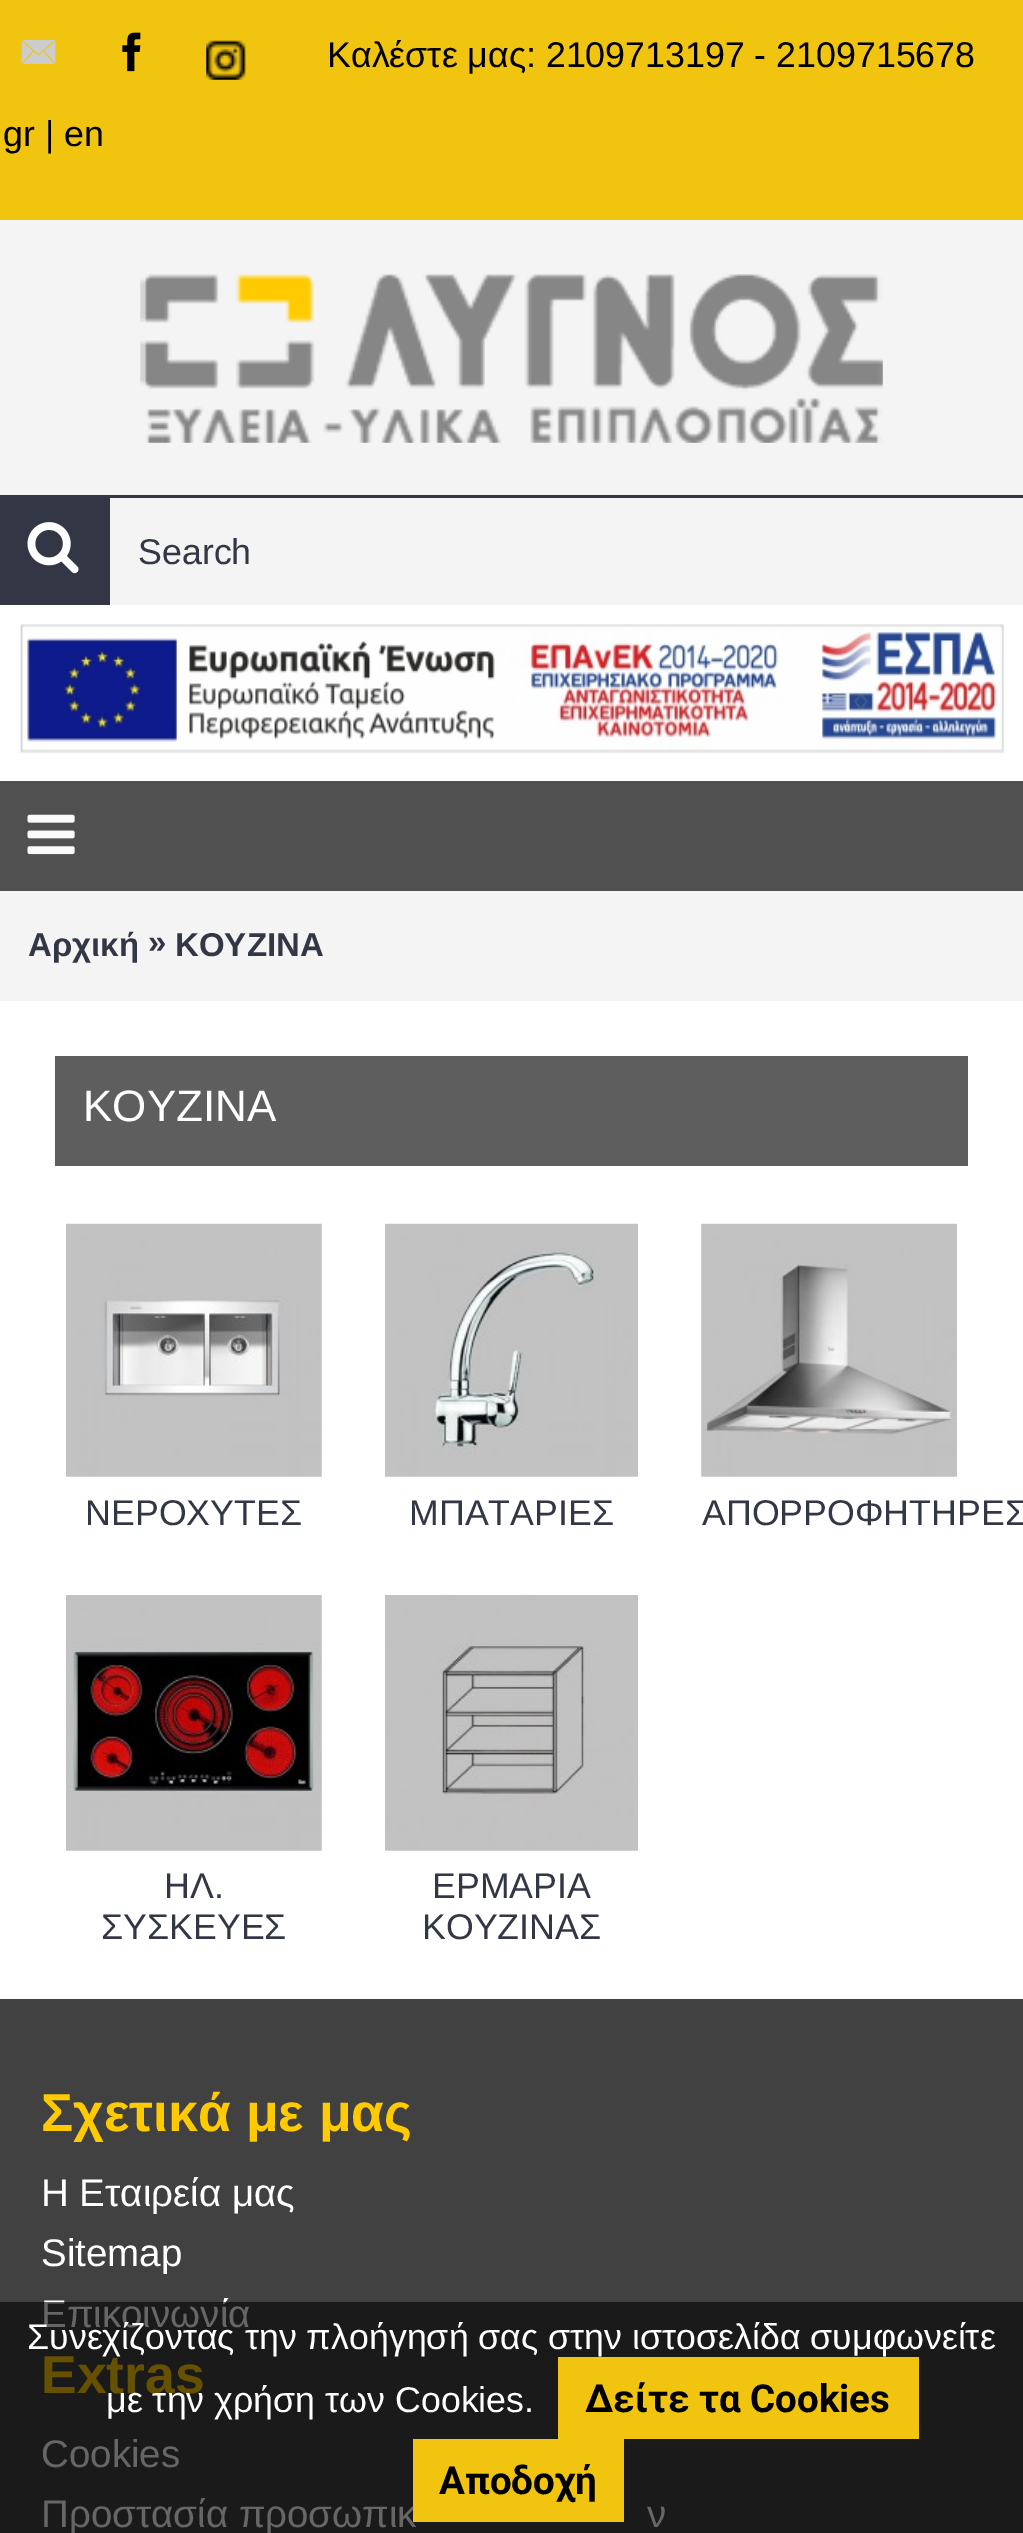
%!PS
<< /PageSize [1023 2533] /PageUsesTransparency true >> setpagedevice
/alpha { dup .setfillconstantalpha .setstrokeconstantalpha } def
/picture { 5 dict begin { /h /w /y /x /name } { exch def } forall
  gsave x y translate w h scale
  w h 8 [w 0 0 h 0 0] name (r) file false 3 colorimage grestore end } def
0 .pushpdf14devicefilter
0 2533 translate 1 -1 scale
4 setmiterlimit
1 setgray
0 0 1023 2533 rectfill
0.945 0.769 0.059 setrgbcolor
0 0 1023 220 rectfill
(img1.rgb) 21 39 35 25 picture
(img2.rgb) 122 32 19 40 picture
(img3.rgb) 206 40 40 40 picture
/LiberationSans-Regular [35.75 0 0 -35.75 0 0] selectfont
0 setgray
327 67 moveto (Καλέστε μας: 2109713197 - 2109715678) show
3 146 moveto (gr | en) show
0.957 setgray
0 220 1023 275 rectfill
(img4.rgb) 140 274 743 169 picture
0.2 0.216 0.271 setrgbcolor
0 495 110 110 rectfill
(img5.rgb) 27 522 52 52 picture
0.957 setgray
110 498 913 107 rectfill
0.2 0.216 0.271 setrgbcolor
110 495 913 3 rectfill
138 564 moveto (Search) show
(img6.rgb) 20 624 984 130 picture
0.314 setgray
0 781 1023 110 rectfill
(img7.rgb) 27 814 48 41 picture
0.957 setgray
0 891 1023 110 rectfill
/LiberationSans-Bold [33 0 0 -33 0 0] selectfont
0.2 0.216 0.271 setrgbcolor
28 956 moveto (Αρχική) show
148 953 moveto (») show
175 956 moveto (ΚΟΥΖΙΝΑ) show
0.369 setgray
55 1056 913 110 rectfill
/LiberationSans-Regular [44 0 0 -44 0 0] selectfont
1 setgray
83 1121 moveto (ΚΟΥΖΙΝΑ) show
(img8.rgb) 66 1223 256 254 picture
/LiberationSans-Regular [35.75 0 0 -35.75 0 0] selectfont
0.2 0.216 0.271 setrgbcolor
85 1525 moveto (ΝΕΡΟΧΥΤΕΣ) show
(img9.rgb) 385 1223 253 254 picture
409 1525 moveto (ΜΠΑΤΑΡΙΕΣ) show
(img10.rgb) 701 1223 256 254 picture
702 1525 moveto (ΑΠΟΡΡΟΦΗΤΗΡΕΣ) show
(img11.rgb) 66 1595 256 256 picture
164 1898 moveto (ΗΛ.) show
101 1939 moveto (ΣΥΣΚΕΥΕΣ) show
(img12.rgb) 385 1595 253 256 picture
432 1898 moveto (ΕΡΜΑΡΙΑ) show
422 1939 moveto (ΚΟΥΖΙΝΑΣ) show
0.255 setgray
0 1999 1023 534 rectfill
/LiberationSans-Bold [53.5 0 0 -53.5 0 0] selectfont
1 0.796 0 setrgbcolor
41 2131 moveto (Σχετικά με μας) show
/LiberationSans-Regular [38.5 0 0 -38.5 0 0] selectfont
1 setgray
41 2206 moveto (Η Εταιρεία μας) show
41 2266 moveto (Sitemap) show
41 2327 moveto (Επικοινωνία) show
/LiberationSans-Bold [53.5 0 0 -53.5 0 0] selectfont
1 0.796 0 setrgbcolor
41 2393 moveto (Extras) show
/LiberationSans-Regular [38.5 0 0 -38.5 0 0] selectfont
1 setgray
41 2467 moveto (Cookies) show
41 2527 moveto (Προστασία προσωπικ) show
647 2527 moveto (ν) show
0.6 alpha
0 setgray
0 2302 1023 231 rectfill
/LiberationSans-Regular [35.75 0 0 -35.75 0 0] selectfont
1 alpha
1 setgray
27 2349 moveto (Συνεχίζοντας την πλοήγησή σας στην ιστοσελίδα συμφωνείτε) show
106 2412 moveto (με την χρήση των Cookies.) show
0.945 0.769 0.059 setrgbcolor
558 2357 361 82 rectfill
/Roboto-Bold [38.5 0 0 -38.5 0 0] selectfont
0 setgray
585 2412 moveto (Δείτε τα Cookies) show
0.945 0.769 0.059 setrgbcolor
413 2439 211 83 rectfill
0 setgray
439 2494 moveto (Αποδοχή) show
.poppdf14devicefilter showpage
